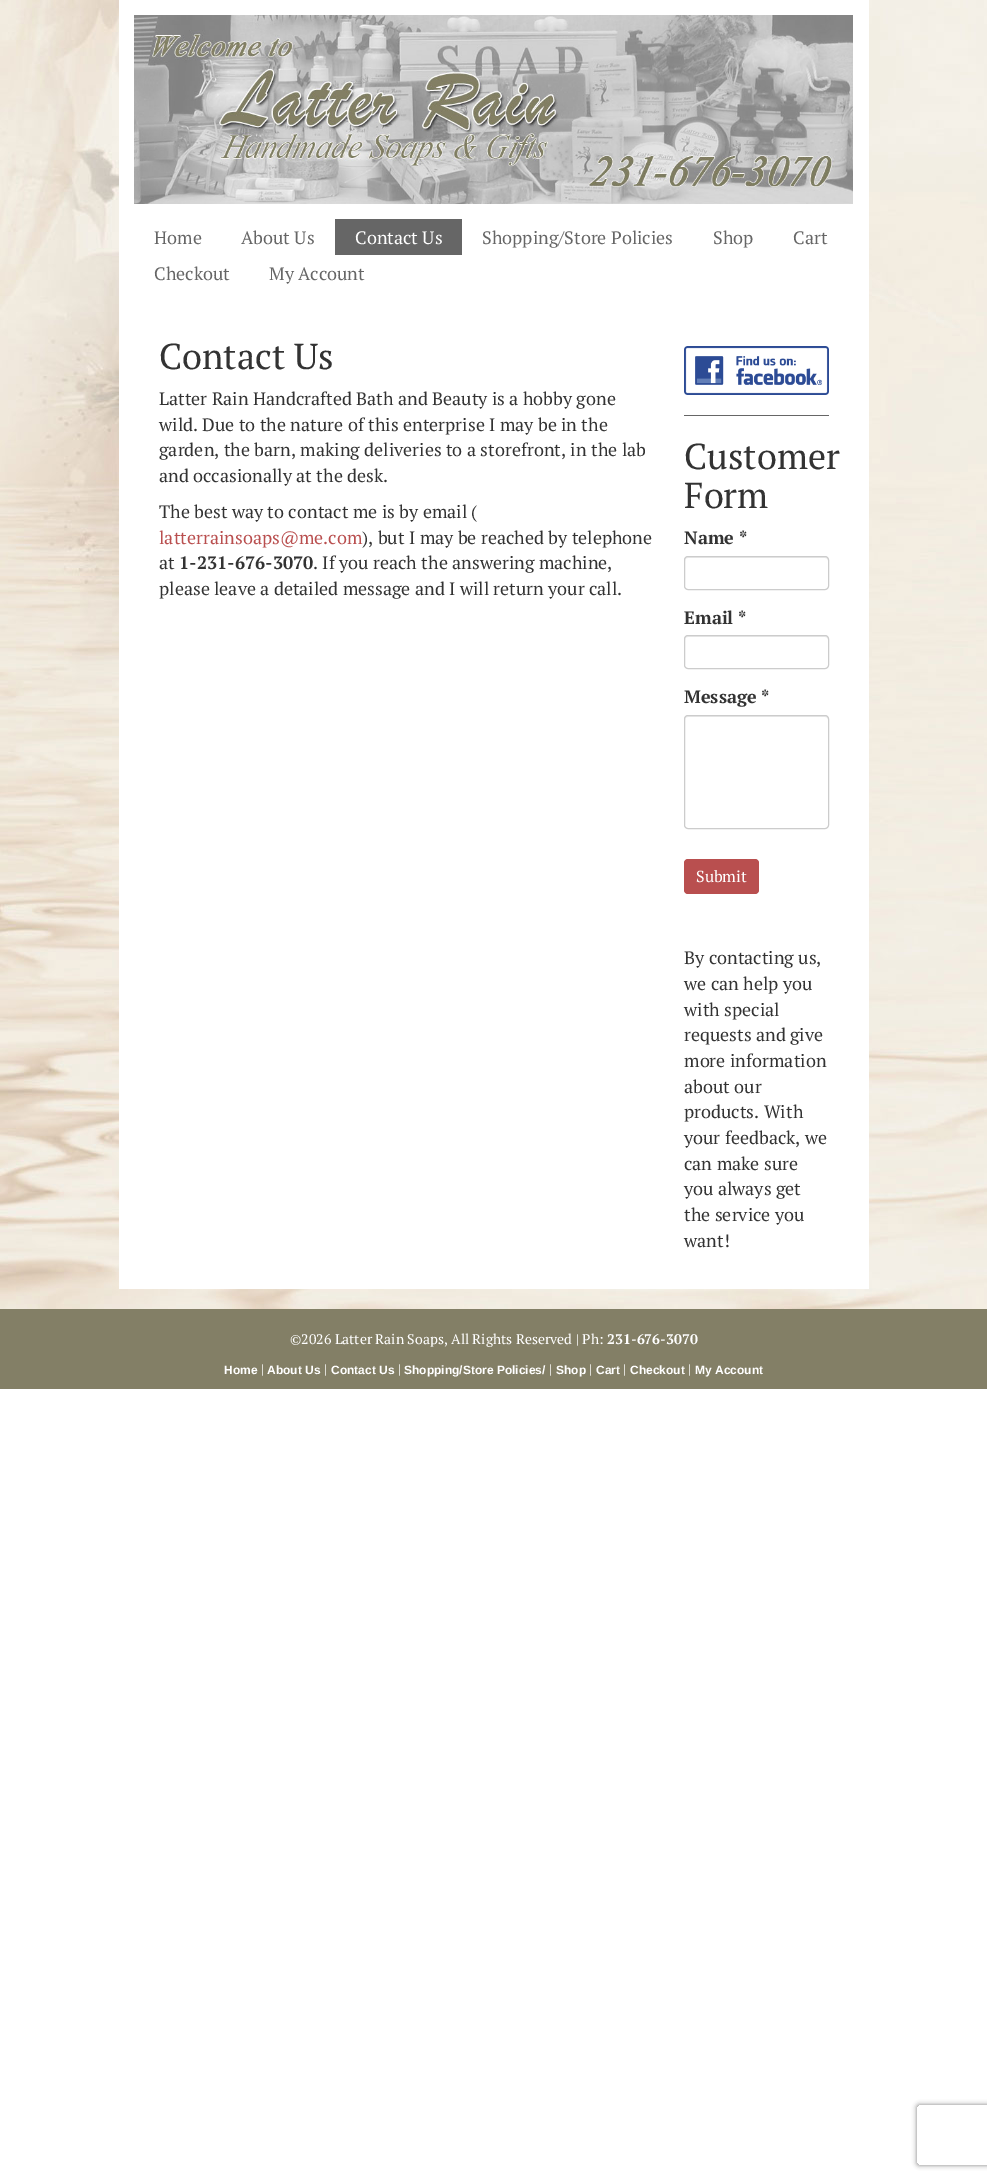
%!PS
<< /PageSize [987 2179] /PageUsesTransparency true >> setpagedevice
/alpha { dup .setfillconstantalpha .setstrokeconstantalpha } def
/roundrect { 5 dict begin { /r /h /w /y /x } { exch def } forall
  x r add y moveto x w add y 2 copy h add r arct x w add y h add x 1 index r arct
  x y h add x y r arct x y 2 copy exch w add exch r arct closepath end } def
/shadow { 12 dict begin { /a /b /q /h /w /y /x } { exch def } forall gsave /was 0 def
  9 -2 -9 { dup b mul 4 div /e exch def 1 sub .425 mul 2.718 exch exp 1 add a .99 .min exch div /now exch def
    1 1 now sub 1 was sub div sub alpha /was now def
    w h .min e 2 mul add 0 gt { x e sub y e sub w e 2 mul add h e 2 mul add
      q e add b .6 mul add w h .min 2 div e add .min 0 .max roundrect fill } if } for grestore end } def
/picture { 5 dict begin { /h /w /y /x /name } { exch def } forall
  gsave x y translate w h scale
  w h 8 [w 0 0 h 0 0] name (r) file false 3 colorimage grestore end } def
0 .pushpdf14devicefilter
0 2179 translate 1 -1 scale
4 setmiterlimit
1 setgray
0 0 987 2179 rectfill
(img1.rgb) 0 0 987 1309 picture
119 0 750 1289 rectfill
(img2.rgb) 134 15 719 189 picture
/PTSerif-Regular [18 0 0 -18 0 0] selectfont
0.4 setgray
154 244 moveto (Home) show
241 244 moveto (About Us) show
335 219 127 36 rectfill
1 setgray
355 244 moveto (Contact Us) show
0.4 setgray
482 244 moveto (Shopping/Store Policies) show
713 244 moveto (Shop) show
793 244 moveto (Cart) show
154 280 moveto (Checkout) show
269 280 moveto (My Account) show
/PTSerif-Regular [36 0 0 -36 0 0] selectfont
0.2 setgray
159 369 moveto (Contact Us) show
/PTSerif-Regular [18 0 0 -18 0 0] selectfont
159 405 moveto (Latter Rain Handcrafted Bath and Beauty is a hobby gone) show
159 431 moveto (wild. Due to the nature of this enterprise I may be in the) show
159 456 moveto (garden, the barn, making deliveries to a storefront, in the lab) show
159 482 moveto (and occasionally at the desk.) show
159 518 moveto (The best way to contact me is by email \() show
0.725 0.31 0.31 setrgbcolor
159 544 moveto (latterrainsoaps@me.com) show
0.2 setgray
362 544 moveto (\), but I may be reached by telephone) show
159 569 moveto (at) show
/PTSerif-Bold [18 0 0 -18 0 0] selectfont
179 569 moveto (1-231-676-3070) show
/PTSerif-Regular [18 0 0 -18 0 0] selectfont
313 569 moveto (. If you reach the answering machine,) show
159 595 moveto (please leave a detailed message and I will return your call.) show
(img3.rgb) 684 346 145 49 picture
0.4 setgray
684 415 145 1 rectfill
/PTSerif-Regular [36 0 0 -36 0 0] selectfont
0.2 setgray
684 469 moveto (Customer) show
684 508 moveto (Form) show
/PTSerif-Bold [18 0 0 -18 0 0] selectfont
684 544 moveto (Name *) show
0.925 setgray
newpath 688 558 moveto 825 558 lineto 827 558 828 559 828 561 curveto 828 560 lineto 828 558 827 557 825 557 curveto 688 557 lineto 686 557 685 558 685 560 curveto 685 561 lineto 685 559 686 558 688 558 curveto closepath fill
0.8 setgray
684.5 556.5 144 33 3.5 roundrect stroke
0.2 setgray
684 624 moveto (Email *) show
0.925 setgray
newpath 688 637 moveto 825 637 lineto 827 637 828 638 828 640 curveto 828 639 lineto 828 637 827 636 825 636 curveto 688 636 lineto 686 636 685 637 685 639 curveto 685 640 lineto 685 638 686 637 688 637 curveto closepath fill
0.8 setgray
684.5 635.5 144 33 3.5 roundrect stroke
0.2 setgray
684 703 moveto (Message *) show
0.925 setgray
newpath 688 717 moveto 825 717 lineto 827 717 828 718 828 720 curveto 828 719 lineto 828 717 827 716 825 716 curveto 688 716 lineto 686 716 685 717 685 719 curveto 685 720 lineto 685 718 686 717 688 717 curveto closepath fill
0.8 setgray
684.5 715.5 144 113 3.5 roundrect stroke
0.725 0.31 0.31 setrgbcolor
684 859 75 35 4 roundrect fill
/PTSerif-Regular [16 0 0 -16 0 0] selectfont
1 setgray
696 882 moveto (Submit) show
gsave
newpath 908 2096 moveto 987 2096 lineto 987 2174 lineto 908 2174 lineto closepath 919 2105 moveto 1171 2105 lineto 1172 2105 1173 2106 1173 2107 curveto 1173 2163 lineto 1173 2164 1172 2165 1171 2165 curveto 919 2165 lineto 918 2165 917 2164 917 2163 curveto 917 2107 lineto 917 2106 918 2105 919 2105 curveto closepath eoclip newpath
0.502 setgray
917 2105 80 60 2 2.5 1 shadow
grestore
/PTSerif-Regular [18 0 0 -18 0 0] selectfont
0.2 setgray
684 964 moveto (By contacting us,) show
684 990 moveto (we can help you) show
684 1016 moveto (with special) show
684 1041 moveto (requests and give) show
684 1067 moveto (more information) show
684 1093 moveto (about our) show
684 1118 moveto (products. With) show
684 1144 moveto (your feedback, we) show
684 1170 moveto (can make sure) show
684 1195 moveto (you always get) show
684 1221 moveto (the service you) show
684 1247 moveto (want!) show
0.514 0.498 0.4 setrgbcolor
0 1309 987 80 rectfill
/PTSerif-Regular [14 0 0 -14 0 0] selectfont
1 setgray
290 1344 moveto (©2026 Latter Rain Soaps, All Rights Reserved | Ph:) show
/PTSerif-Bold [14 0 0 -14 0 0] selectfont
607 1344 moveto (231-676-3070) show
/LiberationSans-Bold [12 0 0 -12 0 0] selectfont
224 1374 moveto (Home) show
/PTSerif-Regular [14 0 0 -14 0 0] selectfont
261 1374 moveto (|) show
/LiberationSans-Bold [12 0 0 -12 0 0] selectfont
267 1374 moveto (About Us) show
/PTSerif-Regular [14 0 0 -14 0 0] selectfont
324 1374 moveto (|) show
/LiberationSans-Bold [12 0 0 -12 0 0] selectfont
331 1374 moveto (Contact Us) show
/PTSerif-Regular [14 0 0 -14 0 0] selectfont
398 1374 moveto (|) show
/LiberationSans-Bold [12 0 0 -12 0 0] selectfont
404 1374 moveto (Shopping/Store Policies/) show
/PTSerif-Regular [14 0 0 -14 0 0] selectfont
549 1374 moveto (|) show
/LiberationSans-Bold [12 0 0 -12 0 0] selectfont
556 1374 moveto (Shop) show
/PTSerif-Regular [14 0 0 -14 0 0] selectfont
589 1374 moveto (|) show
/LiberationSans-Bold [12 0 0 -12 0 0] selectfont
596 1374 moveto (Cart) show
/PTSerif-Regular [14 0 0 -14 0 0] selectfont
623 1374 moveto (|) show
/LiberationSans-Bold [12 0 0 -12 0 0] selectfont
630 1374 moveto (Checkout) show
/PTSerif-Regular [14 0 0 -14 0 0] selectfont
688 1374 moveto (|) show
/LiberationSans-Bold [12 0 0 -12 0 0] selectfont
695 1374 moveto (My Account) show
.poppdf14devicefilter showpage
